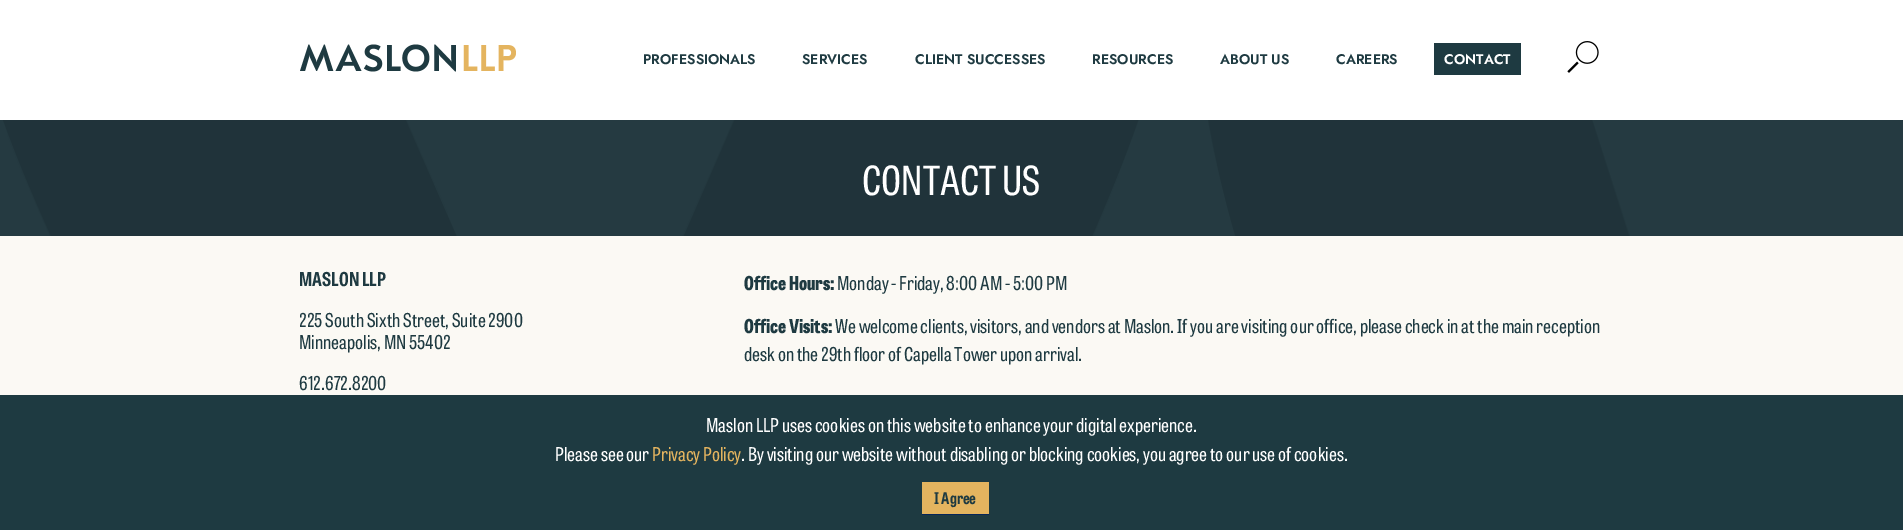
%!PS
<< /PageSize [1903 530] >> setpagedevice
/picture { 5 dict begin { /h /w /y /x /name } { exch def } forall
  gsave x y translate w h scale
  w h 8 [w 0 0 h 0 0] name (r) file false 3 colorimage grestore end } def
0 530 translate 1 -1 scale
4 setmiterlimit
1 setgray
0 0 1903 530 rectfill
(img1.rgb) 300 44 216 28 picture
/Jost-SemiBold [14 0 0 -14 0 0] selectfont
0.118 0.227 0.255 setrgbcolor
643 64 moveto (PROFESSIONALS) show
802 64 moveto (SERVICES) show
915 64 moveto (CLIENT SUCCESSES) show
1092 64 moveto (RESOURCES) show
1220 64 moveto (ABOUT US) show
1336 64 moveto (CAREERS) show
1434 43 87 32 rectfill
1 setgray
1444 64 moveto (CONTACT) show
(img2.rgb) 1567 41 32 32 picture
(img3.rgb) 0 120 1903 116 picture
/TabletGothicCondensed-Regular [40 0 0 -40 0 0] selectfont
862 195 moveto (CONTACT US) show
0.984 0.976 0.957 setrgbcolor
0 236 1903 159 rectfill
/TabletGothicCondensed-Bold [19 0 0 -19 0 0] selectfont
0.118 0.227 0.255 setrgbcolor
299 286 moveto (MASLON LLP) show
/TabletGothicCondensed-Regular [19 0 0 -19 0 0] selectfont
299 327 moveto (225 South Sixth Street, Suite 2900) show
299 349 moveto (Minneapolis, MN 55402) show
299 390 moveto (612.672.8200) show
/TabletGothicCondensed-ExtraBold [19 0 0 -19 0 0] selectfont
744 290 moveto (Office Hours:) show
/TabletGothicCondensed-Regular [19 0 0 -19 0 0] selectfont
837 290 moveto (Monday - Friday, 8:00 AM - 5:00 PM) show
/TabletGothicCondensed-ExtraBold [19 0 0 -19 0 0] selectfont
744 333 moveto (Office Visits:) show
/TabletGothicCondensed-Regular [19 0 0 -19 0 0] selectfont
835 333 moveto (We welcome clients, visitors, and vendors at Maslon. If you are visiting our office, please check in at the main reception) show
744 361 moveto (desk on the 29th floor of Capella Tower upon arrival.) show
0 395 1903 135 rectfill
1 setgray
706 432 moveto (Maslon LLP uses cookies on this website to enhance your digital experience.) show
555 461 moveto (Please see our) show
0.894 0.706 0.373 setrgbcolor
652 461 moveto (Privacy Policy) show
1 setgray
741 461 moveto (. By visiting our website without disabling or blocking cookies, you agree to our use of cookies.) show
0.894 0.706 0.373 setrgbcolor
922 482 67 32 rectfill
0.027 0.145 0.349 setrgbcolor
922 514 67 1 rectfill
/TabletGothicCondensed-Bold [16 0 0 -16 0 0] selectfont
0.118 0.227 0.255 setrgbcolor
934 504 moveto (I Agree) show
showpage
